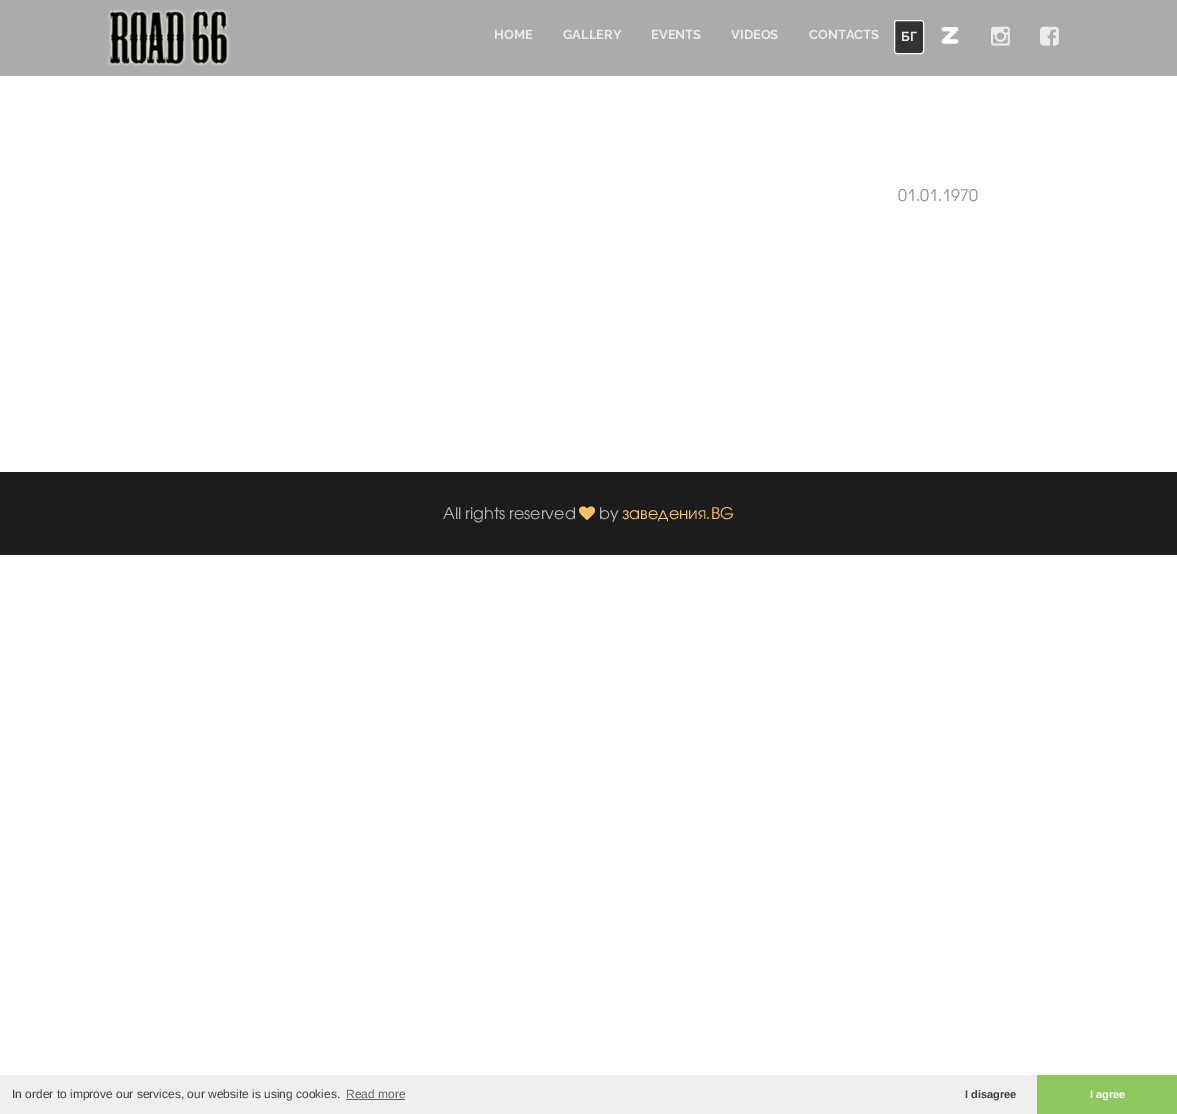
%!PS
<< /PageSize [1177 1114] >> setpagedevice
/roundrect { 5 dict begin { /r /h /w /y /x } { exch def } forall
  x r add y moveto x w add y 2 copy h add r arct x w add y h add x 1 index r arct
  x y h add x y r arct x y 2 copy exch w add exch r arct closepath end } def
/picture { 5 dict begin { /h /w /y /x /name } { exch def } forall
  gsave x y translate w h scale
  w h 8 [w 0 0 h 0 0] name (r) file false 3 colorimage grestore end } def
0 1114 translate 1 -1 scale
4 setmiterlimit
1 setgray
0 0 1177 1114 rectfill
0.671 setgray
0 0 1177 76 rectfill
(img1.rgb) 107 9 123 58 picture
/Raleway-Bold [13 0 0 -13 0 0] selectfont
0.925 setgray
494 39 moveto (HOME) show
563 39 moveto (GALLERY) show
651 39 moveto (EVENTS) show
731 39 moveto (VIDEOS) show
809 39 moveto (CONTACTS) show
0.2 setgray
894.5 20.5 29 33 2.5 roundrect gsave fill grestore
1 setgray
stroke
0.925 setgray
901 41 moveto (БГ) show
(img2.rgb) 941 27 18 18 picture
(img3.rgb) 991 26 19 20 picture
(img4.rgb) 1040 26 19 20 picture
/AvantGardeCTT-Regular [16 0 0 -16 0 0] selectfont
0.557 setgray
898 201 moveto (01.01.1970) show
0.11 0.11 0.118 setrgbcolor
0 472 1177 83 rectfill
0.71 0.71 0.706 setrgbcolor
443 519 moveto (All rights reserved) show
(img5.rgb) 579 506 16 15 picture
599 519 moveto (by) show
0.976 0.773 0.416 setrgbcolor
622 519 moveto (заведения.BG) show
0.937 setgray
0 1075 1037 39 rectfill
/LiberationSans-Regular [12 0 0 -12 0 0] selectfont
0.251 setgray
12 1098 moveto (In order to improve our services, our website is using cookies.) show
0.388 setgray
346 1098 moveto (Read more) show
346 1099 59 1 rectfill
/LiberationSans-Bold [11 0 0 -11 0 0] selectfont
0.251 setgray
965 1098 moveto (I disagree) show
0.557 0.78 0.376 setrgbcolor
1037 1075 140 39 rectfill
1 setgray
1090 1098 moveto (I agree) show
showpage
